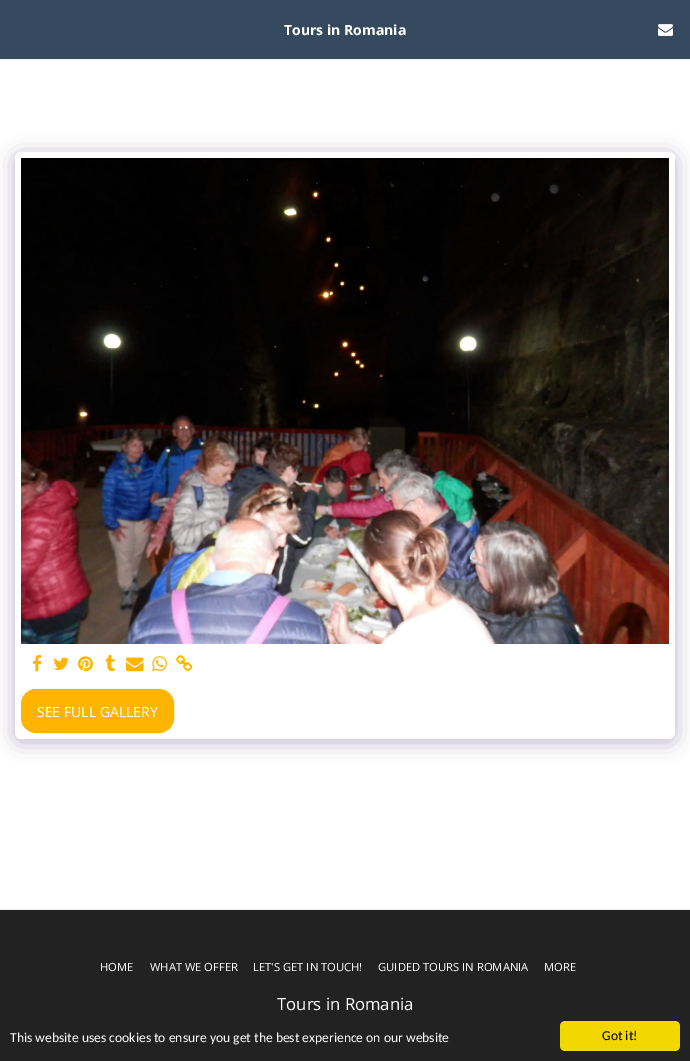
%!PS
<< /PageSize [690 1061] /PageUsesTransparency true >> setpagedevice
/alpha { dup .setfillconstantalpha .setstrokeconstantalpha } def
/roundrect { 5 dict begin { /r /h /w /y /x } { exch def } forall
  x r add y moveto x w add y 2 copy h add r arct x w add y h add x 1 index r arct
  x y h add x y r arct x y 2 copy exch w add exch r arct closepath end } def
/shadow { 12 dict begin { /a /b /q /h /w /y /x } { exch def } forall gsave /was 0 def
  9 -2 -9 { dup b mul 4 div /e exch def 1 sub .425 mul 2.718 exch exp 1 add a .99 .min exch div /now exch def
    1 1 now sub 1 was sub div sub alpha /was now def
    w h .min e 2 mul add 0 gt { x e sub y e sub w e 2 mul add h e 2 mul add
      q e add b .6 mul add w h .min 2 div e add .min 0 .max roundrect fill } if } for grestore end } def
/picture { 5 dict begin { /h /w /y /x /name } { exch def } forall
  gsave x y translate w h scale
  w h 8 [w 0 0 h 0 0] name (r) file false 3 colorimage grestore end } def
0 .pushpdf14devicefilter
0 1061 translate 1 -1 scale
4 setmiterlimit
1 setgray
0 0 690 1061 rectfill
0.204 0.286 0.369 setrgbcolor
0 0 690 59 rectfill
0.953 0.933 0.933 setrgbcolor
0 59 690 1 rectfill
/OpenSans-Bold [14 0 0 -14 0 0] selectfont
1 setgray
284 35 moveto (Tours in Romania) show
(img1.rgb) 658 24 15 12 picture
0.302 0.247 0.478 setrgbcolor
15 155 660 587 6 10 0.4 shadow
1 setgray
15 152 660 587 6 roundrect fill
(img2.rgb) 21 158 648 486 picture
(img3.rgb) 32 655 10 17 picture
(img4.rgb) 53 657 16 13 picture
(img5.rgb) 78 656 15 16 picture
(img6.rgb) 105 655 10 17 picture
(img7.rgb) 126 657 18 15 picture
(img8.rgb) 152 656 15 16 picture
(img9.rgb) 176 655 16 17 picture
1 0.706 0 setrgbcolor
21.5 689.5 152 43 14.5 roundrect gsave fill grestore
stroke
/OpenSans-Regular [14 0 0 -14 0 0] selectfont
1 setgray
37 717 moveto (SEE FULL GALLERY) show
0.133 setgray
0 910 690 151 rectfill
0.953 0.933 0.933 setrgbcolor
0 909 690 1 rectfill
/OpenSans-Regular [11.25 0 0 -11.25 0 0] selectfont
1 setgray
100 971 moveto (HOME) show
150 971 moveto (WHAT WE OFFER) show
253 971 moveto (LET'S GET IN TOUCH!) show
378 971 moveto (GUIDED TOURS IN ROMANIA) show
544 971 moveto (MORE) show
/OpenSans-Regular [16.75 0 0 -16.75 0 0] selectfont
277 1010 moveto (Tours in Romania) show
/Carlito-Regular [13.6 0 0 -13.6 0 0] selectfont
10 1042 moveto (This website uses cookies to ensure you get the best experience on our website) show
0.945 0.839 0 setrgbcolor
560 1021 120 30 5 roundrect fill
0 setgray
602 1040 moveto (Got it!) show
.poppdf14devicefilter showpage
